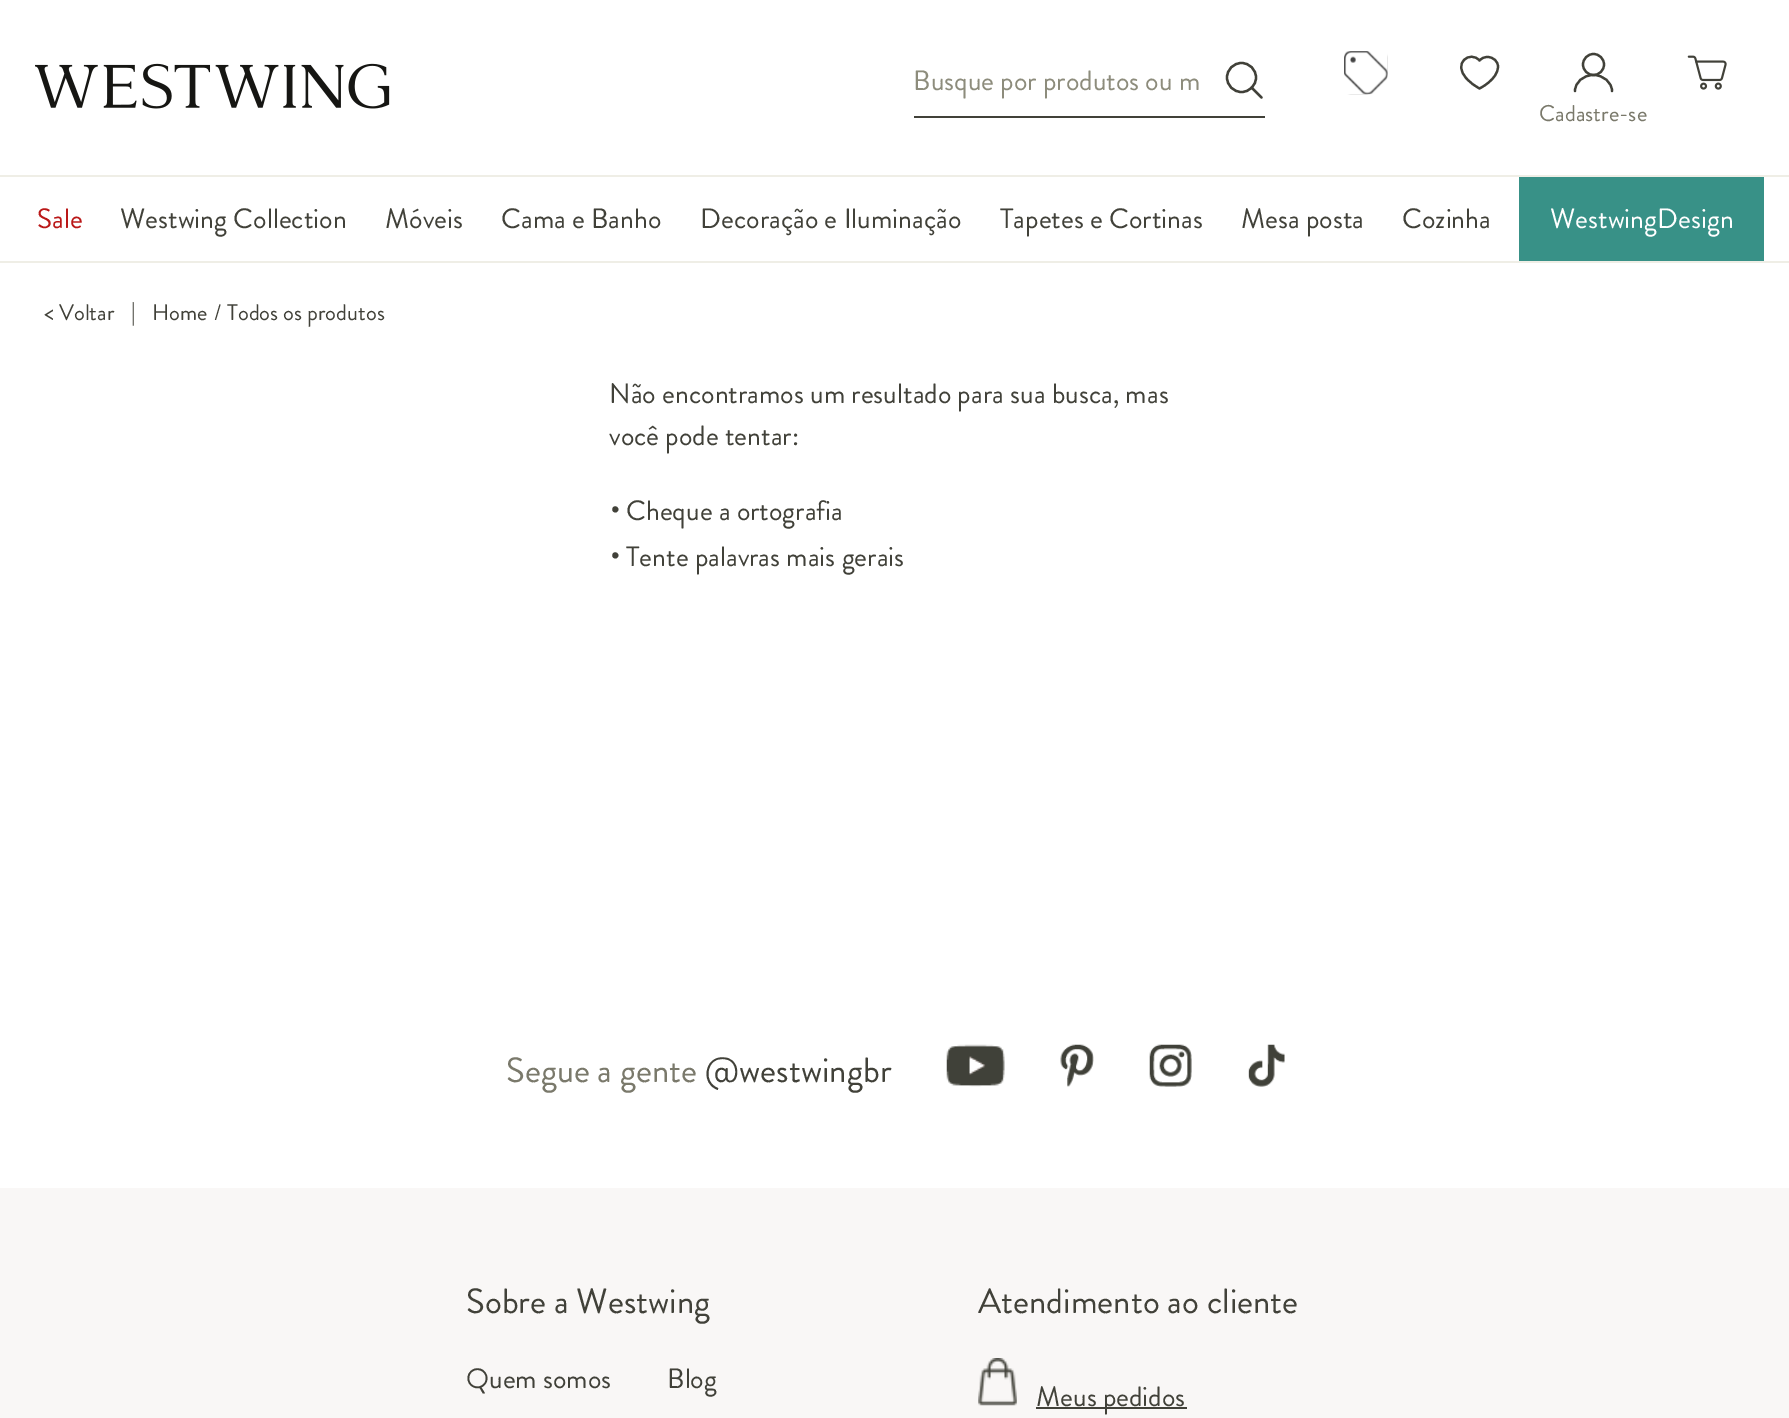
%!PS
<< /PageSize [1789 1418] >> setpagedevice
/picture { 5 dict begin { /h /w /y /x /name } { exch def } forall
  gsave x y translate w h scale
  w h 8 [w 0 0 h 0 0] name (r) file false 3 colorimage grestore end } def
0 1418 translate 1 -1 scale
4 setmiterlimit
1 setgray
0 0 1789 1418 rectfill
(img1.rgb) 35 63 355 46 picture
0.255 0.255 0.224 setrgbcolor
914 116 351 2 rectfill
/BrandonGrotesque-Regular [28 0 0 -28 0 0] selectfont
0.553 0.549 0.486 setrgbcolor
913 90 moveto (Busque por produtos ou m) show
0.255 0.255 0.224 setrgbcolor
2.3 setlinewidth
newpath 1241.5 77.5 14.5 0 360 arc closepath stroke
1 setlinecap
1 setlinejoin
newpath 1251.5 87.5 moveto 1261.5 97.5 lineto stroke
(img2.rgb) 1344 51 44 44 picture
2.2 setlinewidth
newpath 1487.5 57 moveto 1484.5 57 1481.5 58 1479.5 60.5 curveto 1470.5 50 1451.5 63 1467 79 curveto 1470.5 83 1475 86 1479.5 88.5 curveto 1479.5 88.5 1498 79.5 1498 66.5 curveto 1498 61.5 1493.5 57 1487.5 57 curveto closepath stroke
(img3.rgb) 1687 55 40 35 picture
0 setlinecap
0 setlinejoin
newpath 1593.5 64.5 10.5 0 360 arc closepath stroke
1 setlinecap
newpath 1575 91 moveto 1575 82.5 1583 75 1593.5 75 curveto 1603.5 75 1612 82.5 1612 91 curveto stroke
/BrandonGrotesque-Regular [22.75 0 0 -22.75 0 0] selectfont
0.478 0.475 0.42 setrgbcolor
1539 121 moveto (Cadastre-se) show
0.937 0.933 0.902 setrgbcolor
0 175 1789 2 rectfill
0 261 1789 2 rectfill
/BrandonGrotesque-Regular [28 0 0 -28 0 0] selectfont
0.729 0.094 0.094 setrgbcolor
37 228 moveto (Sale) show
0.255 0.255 0.224 setrgbcolor
120 228 moveto (Westwing Collection) show
385 228 moveto (Móveis) show
501 228 moveto (Cama e Banho) show
700 228 moveto (Decoração e Iluminação) show
1000 228 moveto (Tapetes e Cortinas) show
1241 228 moveto (Mesa posta) show
1402 228 moveto (Cozinha) show
0.22 0.569 0.529 setrgbcolor
1519 177 245 84 rectfill
1 setgray
1550 228 moveto (WestwingDesign) show
/BrandonGrotesque-Regular [22.5 0 0 -22.5 0 0] selectfont
0.255 0.255 0.224 setrgbcolor
44 320 moveto (< Voltar) show
131 319 moveto (|) show
152 320 moveto (Home) show
214 320 moveto (/) show
227 320 moveto (Todos os produtos) show
/BrandonGrotesque-Regular [28 0 0 -28 0 0] selectfont
609 403 moveto (Não encontramos um resultado para sua busca, mas) show
609 445 moveto (você pode tentar:) show
/BrandonGrotesque-Regular [56 0 0 -56 0 0] selectfont
609 512 moveto (.) show
/BrandonGrotesque-Regular [28 0 0 -28 0 0] selectfont
626 520 moveto (Cheque a ortografia) show
/BrandonGrotesque-Regular [56 0 0 -56 0 0] selectfont
609 558 moveto (.) show
/BrandonGrotesque-Regular [28 0 0 -28 0 0] selectfont
626 566 moveto (Tente palavras mais gerais) show
/BrandonGrotesque-Regular [35 0 0 -35 0 0] selectfont
0.478 0.475 0.42 setrgbcolor
506 1082 moveto (Segue a gente) show
0.255 0.255 0.224 setrgbcolor
705 1082 moveto (@westwingbr) show
(img4.rgb) 946 1044 59 43 picture
(img5.rgb) 1060 1044 34 43 picture
(img6.rgb) 1149 1044 43 43 picture
(img7.rgb) 1248 1044 37 43 picture
0.976 0.969 0.965 setrgbcolor
0 1188 1789 230 rectfill
0.255 0.255 0.224 setrgbcolor
466 1313 moveto (Sobre a Westwing) show
/BrandonGrotesque-Regular [28 0 0 -28 0 0] selectfont
466 1388 moveto (Quem somos) show
667 1388 moveto (Blog) show
/BrandonGrotesque-Regular [35 0 0 -35 0 0] selectfont
978 1313 moveto (Atendimento ao cliente) show
(img8.rgb) 978 1358 39 48 picture
1036 1407 151 2 rectfill
/BrandonGrotesque-Regular [28 0 0 -28 0 0] selectfont
1036 1406 moveto (Meus pedidos) show
showpage
